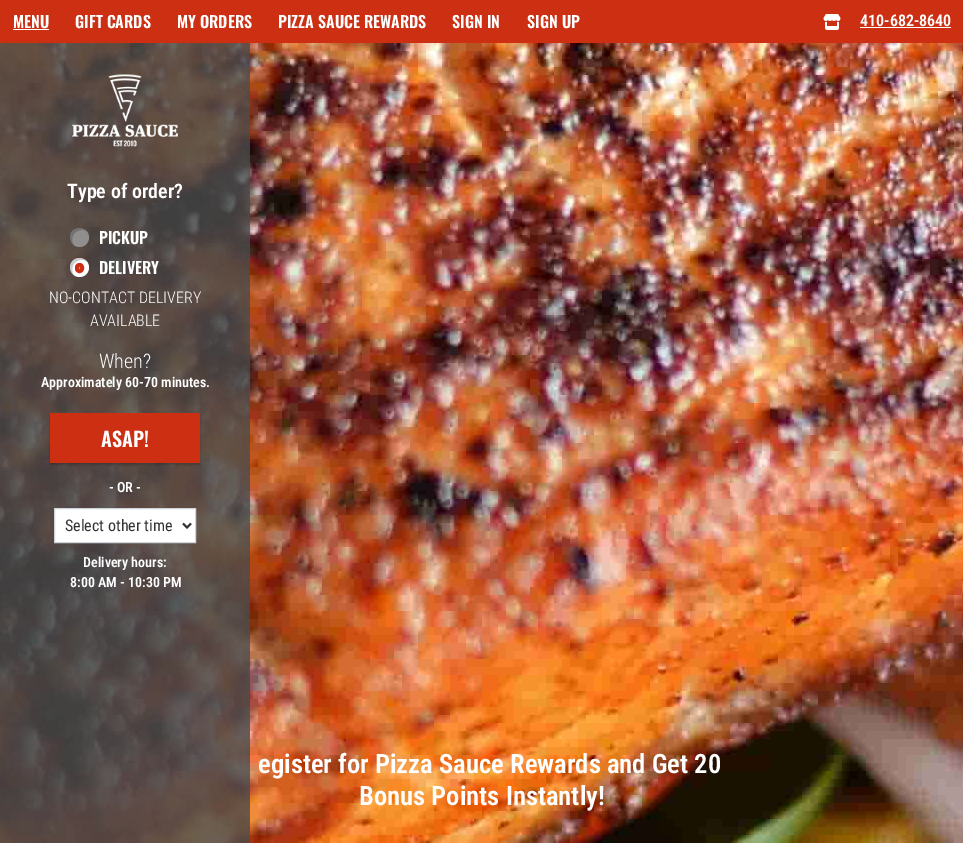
%!PS
<< /PageSize [963 857] /PageUsesTransparency true >> setpagedevice
/alpha { dup .setfillconstantalpha .setstrokeconstantalpha } def
/roundrect { 5 dict begin { /r /h /w /y /x } { exch def } forall
  x r add y moveto x w add y 2 copy h add r arct x w add y h add x 1 index r arct
  x y h add x y r arct x y 2 copy exch w add exch r arct closepath end } def
/shadow { 12 dict begin { /a /b /q /h /w /y /x } { exch def } forall gsave /was 0 def
  9 -2 -9 { dup b mul 4 div /e exch def 1 sub .425 mul 2.718 exch exp 1 add a .99 .min exch div /now exch def
    1 1 now sub 1 was sub div sub alpha /was now def
    w h .min e 2 mul add 0 gt { x e sub y e sub w e 2 mul add h e 2 mul add
      q e add b .6 mul add w h .min 2 div e add .min 0 .max roundrect fill } if } for grestore end } def
/picture { 5 dict begin { /h /w /y /x /name } { exch def } forall
  gsave x y translate w h scale
  w h 8 [w 0 0 h 0 0] name (r) file false 3 colorimage grestore end } def
0 .pushpdf14devicefilter
0 857 translate 1 -1 scale
4 setmiterlimit
1 setgray
0 0 963 857 rectfill
0.8 0.184 0.071 setrgbcolor
0 0 963 43 rectfill
/Oswald-SemiBold [16 0 0 -16 0 0] selectfont
1 setgray
13 28 moveto (MENU) show
13 29 36 1 rectfill
75 28 moveto (GIFT CARDS) show
177 28 moveto (MY ORDERS) show
278 28 moveto (PIZZA SAUCE REWARDS) show
452 28 moveto (SIGN IN) show
527 28 moveto (SIGN UP) show
(img1.rgb) 823 14 18 16 picture
/RobotoCondensed-SemiBold [16 0 0 -16 0 0] selectfont
860 26 moveto (410-682-8640) show
860 27 91 1 rectfill
(img3.rgb) 0 43 963 800 picture
0.8 alpha
0.286 0.294 0.294 setrgbcolor
0 43 250 800 rectfill
1 alpha
(img2.rgb) 72 74 106 73 picture
/RobotoCondensed-SemiBold [20 0 0 -20 0 0] selectfont
1 setgray
67 198 moveto (Type of order?) show
0.9 alpha
0.588 setgray
newpath 79.5 237.5 9.5 0 360 arc closepath fill
0.2 alpha
0 setgray
newpath 82 230 moveto 84 230 85.5 230.5 86.5 231 curveto 77 221 62.5 237.5 74 245.5 curveto 70 240 72.5 230 82 230 curveto closepath fill
/Oswald-SemiBold [16 0 0 -16 0 0] selectfont
1 alpha
1 setgray
99 244 moveto (PICKUP) show
newpath 79.5 267.5 9.5 0 360 arc closepath fill
0.2 alpha
0 setgray
newpath 82 260 moveto 84 260 85.5 260.5 86.5 261 curveto 77 251 62.5 267.5 74 275.5 curveto 70 270 72.5 260 82 260 curveto closepath fill
1 alpha
0.8 0.184 0.071 setrgbcolor
4 setlinewidth
77 265 5 6 2.5 roundrect stroke
1 setgray
99 274 moveto (DELIVERY) show
/RobotoCondensed-Light [16 0 0 -16 0 0] selectfont
49 303 moveto (NO-CONTACT DELIVERY) show
90 326 moveto (AVAILABLE) show
/RobotoCondensed-Light [20 0 0 -20 0 0] selectfont
99 368 moveto (When?) show
/RobotoCondensed-SemiBold [14 0 0 -14 0 0] selectfont
41 387 moveto (Approximately 60-70 minutes.) show
0 setgray
50 415 150 50 0 1 0.2 shadow
0.8 0.184 0.071 setrgbcolor
50 413 150 50 rectfill
/Oswald-SemiBold [20 0 0 -20 0 0] selectfont
1 setgray
101 447 moveto (ASAP!) show
/RobotoCondensed-SemiBold [14 0 0 -14 0 0] selectfont
109 492 moveto (- OR -) show
newpath 54.5 508.5 moveto 195.5 508.5 lineto 195.5 542.5 lineto 54.5 542.5 lineto closepath gsave fill grestore
0.808 0.831 0.855 setrgbcolor
1 setlinewidth
stroke
0.2 setgray
2 setlinewidth
newpath 183 523.5 moveto 187 527.5 lineto 191 523.5 lineto stroke
/RobotoCondensed-Regular [16 0 0 -16 0 0] selectfont
65 531 moveto (Select other time) show
/RobotoCondensed-SemiBold [14 0 0 -14 0 0] selectfont
1 setgray
83 567 moveto (Delivery hours:) show
70 587 moveto (8:00 AM - 10:30 PM) show
/RobotoCondensed-SemiBold [26.6 0 0 -26.6 0 0] selectfont
258 773 moveto (egister for Pizza Sauce Rewards and Get 20) show
359 805 moveto (Bonus Points Instantly!) show
.poppdf14devicefilter showpage
